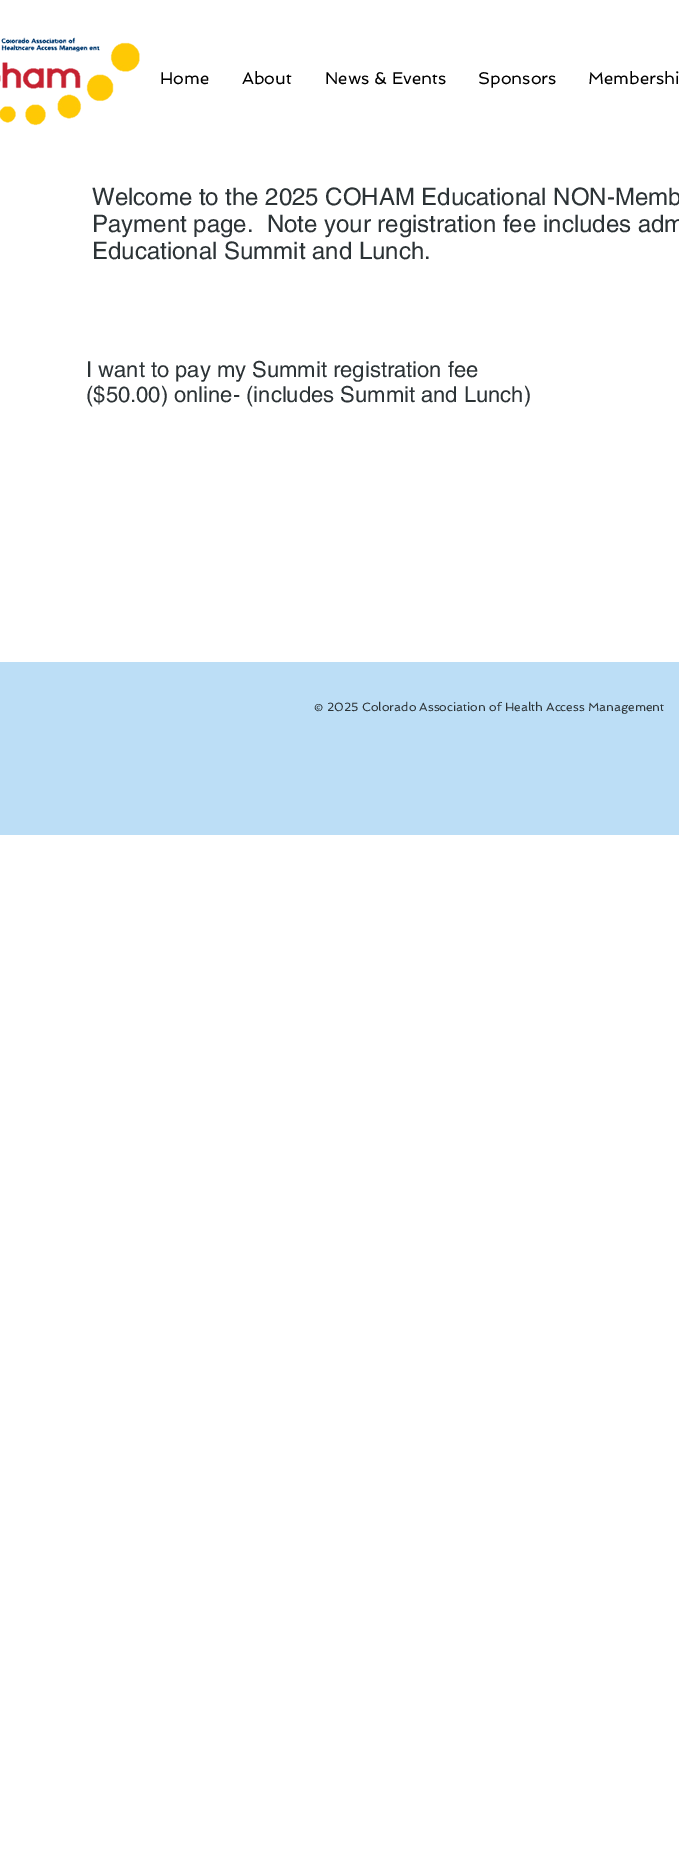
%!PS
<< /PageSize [679 1871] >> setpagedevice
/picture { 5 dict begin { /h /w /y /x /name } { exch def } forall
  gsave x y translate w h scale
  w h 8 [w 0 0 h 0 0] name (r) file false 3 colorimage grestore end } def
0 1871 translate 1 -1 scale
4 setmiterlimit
1 setgray
0 0 679 1871 rectfill
(img1.rgb) 0 37 140 89 picture
/Spinnaker-Regular [17 0 0 -17 0 0] selectfont
0 setgray
160 84 moveto (Home) show
242 84 moveto (About) show
325 84 moveto (News & Events) show
478 84 moveto (Sponsors) show
588 84 moveto (Membershi) show
/helvetica-Regular [24 0 0 -24 0 0] selectfont
0.173 0.2 0.212 setrgbcolor
92 205 moveto (Welcome to the 2025 COHAM Educational NON-Memb) show
92 232 moveto (Payment page.  Note your registration fee includes adm) show
92 259 moveto (Educational Summit and Lunch.) show
/helvetica-Regular [22 0 0 -22 0 0] selectfont
86 377 moveto (I want to pay my Summit registration fee) show
86 402 moveto (\($50.00\) online- \(includes Summit and Lunch\)) show
0.737 0.871 0.965 setrgbcolor
0 662 679 173 rectfill
/Spinnaker-Regular [12 0 0 -12 0 0] selectfont
0.173 0.2 0.212 setrgbcolor
314 711 moveto (© 2025 Colorado Association of Health Access Management) show
showpage
